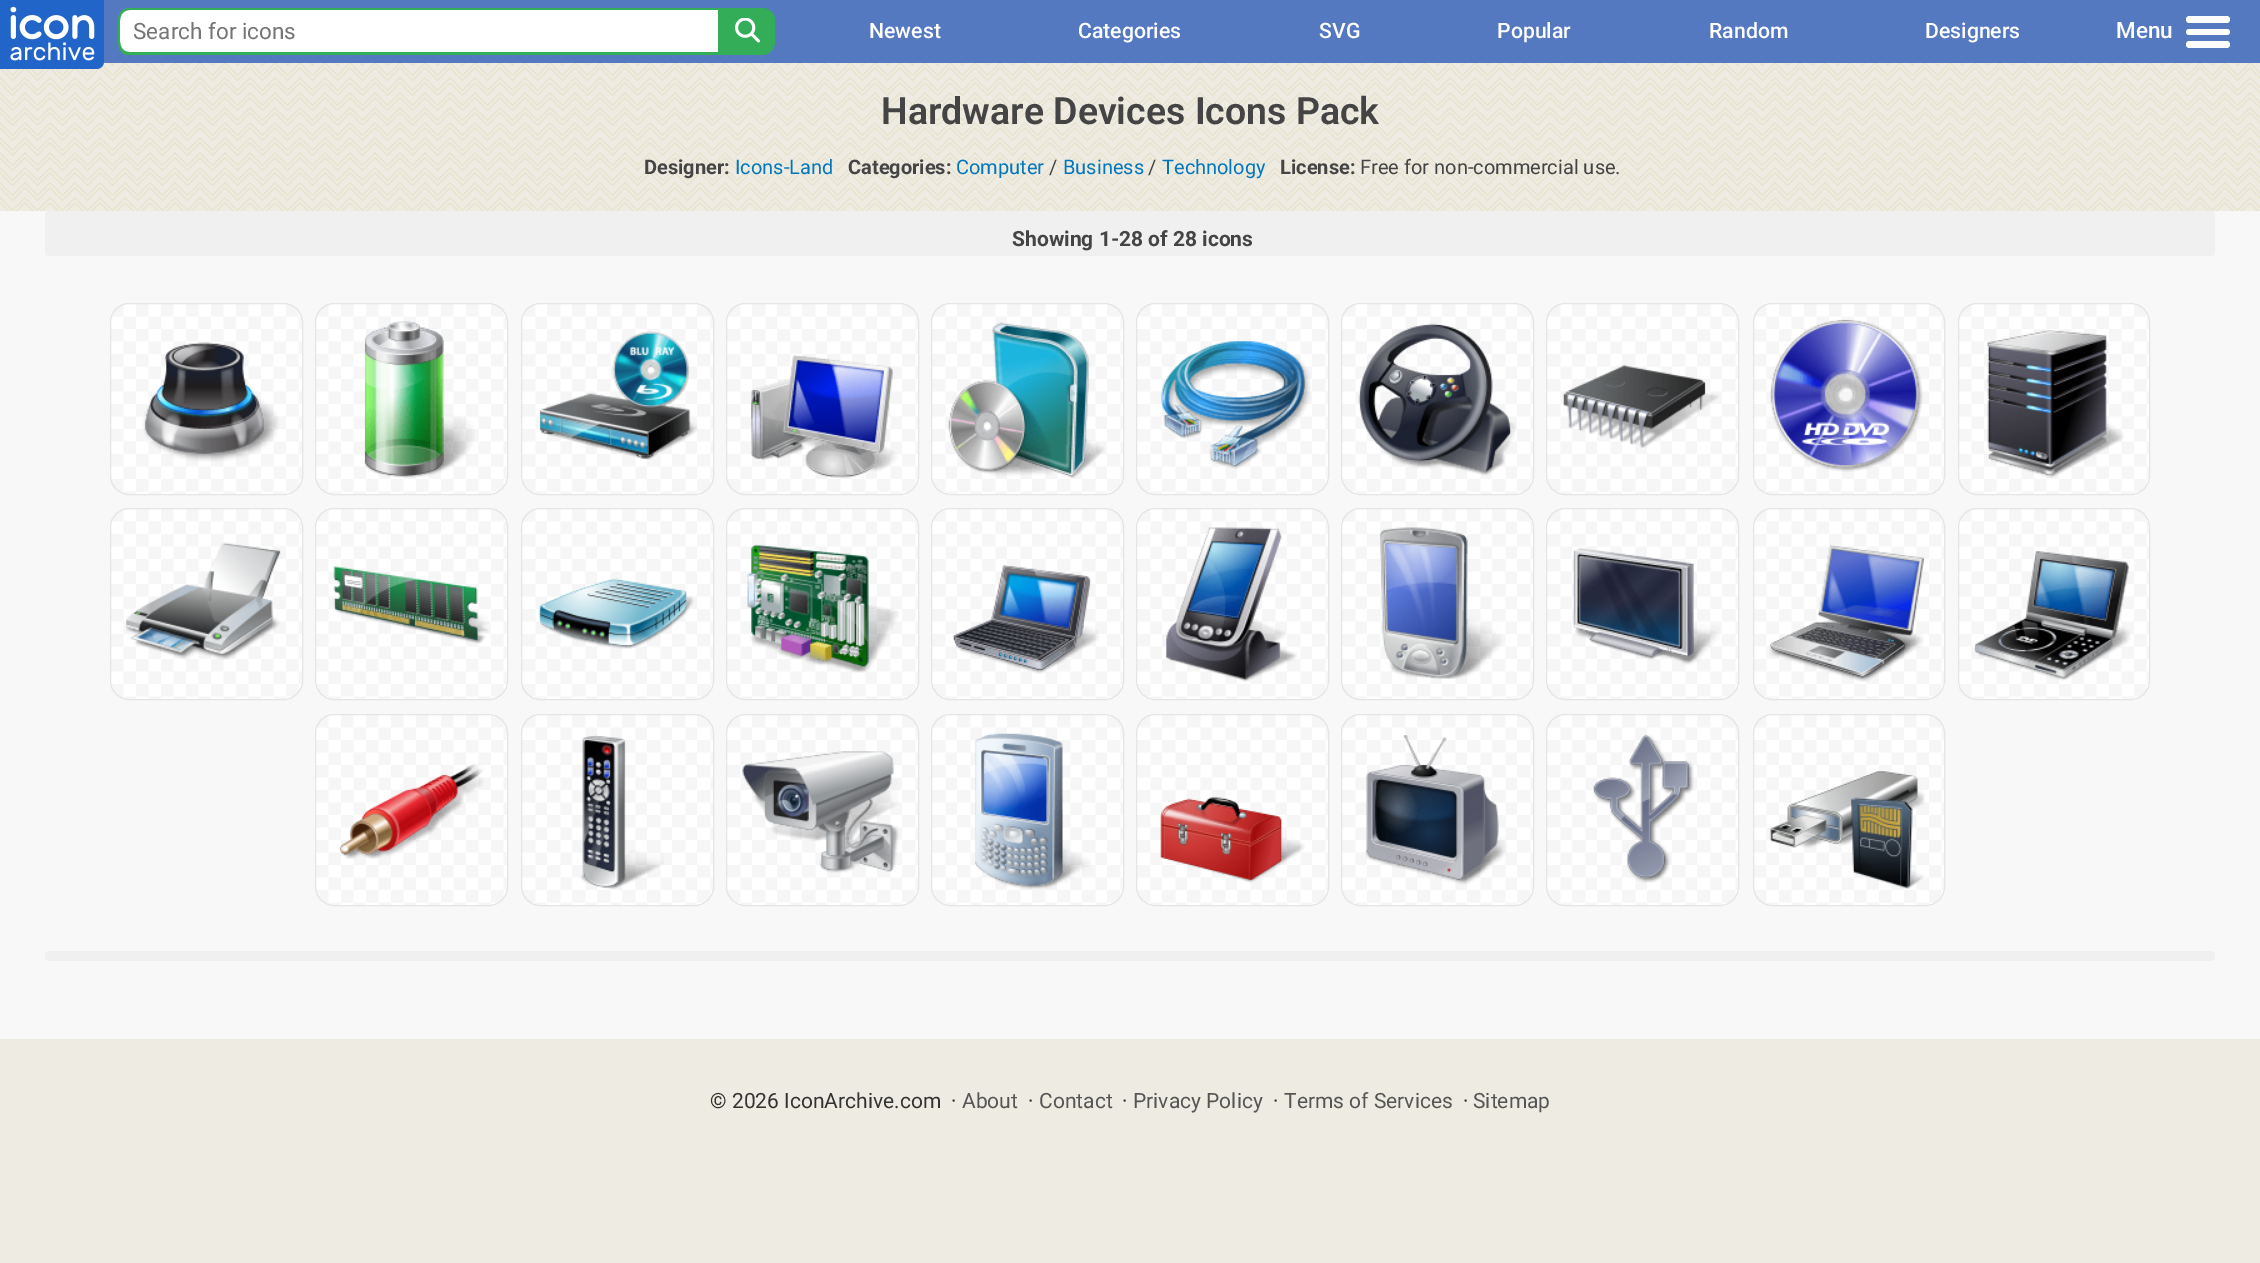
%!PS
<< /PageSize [2260 1263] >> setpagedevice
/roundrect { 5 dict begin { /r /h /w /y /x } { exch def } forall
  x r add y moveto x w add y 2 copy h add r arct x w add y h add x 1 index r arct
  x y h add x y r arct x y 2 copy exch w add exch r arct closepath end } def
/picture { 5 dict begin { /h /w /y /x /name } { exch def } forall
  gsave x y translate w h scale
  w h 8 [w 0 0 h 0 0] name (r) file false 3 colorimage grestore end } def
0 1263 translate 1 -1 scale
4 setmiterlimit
0.973 setgray
0 0 2260 1263 rectfill
0.329 0.475 0.757 setrgbcolor
103 0 2157 63 rectfill
0.933 0.925 0.886 setrgbcolor
0 63 2260 148 rectfill
(img3.rgb) 0 63 2260 149 picture
(img1.rgb) 0 0 104 69 picture
1 setgray
newpath 130 10 moveto 718 10 lineto 718 53 lineto 130 53 lineto 124.5 53 120 48.5 120 43 curveto 120 20 lineto 120 14.5 124.5 10 130 10 curveto closepath fill
0.204 0.678 0.349 setrgbcolor
newpath 130 8 moveto 718 8 lineto 718 55 lineto 127 55 lineto 116 52 118 40 118 31 curveto 118 22 116 8 130 8 curveto closepath 130 10 moveto 718 10 lineto 718 52 lineto 130 52 lineto 118 52 120 39 120 31 curveto 120 23 118 10 130 10 curveto closepath eofill
/Roboto-Regular [22.5 0 0 -22.5 0 0] selectfont
0.459 setgray
133 39 moveto (Search for icons) show
0.204 0.678 0.349 setrgbcolor
newpath 718 10 moveto 763 10 lineto 768.5 10 773 14.5 773 20 curveto 773 43 lineto 773 48.5 768.5 53 763 53 curveto 718 53 lineto closepath fill
newpath 718 8 moveto 762 8 lineto 769 8 775 13 775 20 curveto 775 42 lineto 775 49 769 55 762 55 curveto 718 55 lineto closepath 718 10 moveto 762 10 lineto 768 10 772 14 772 20 curveto 772 42 lineto 772 48 768 52 762 52 curveto 718 52 lineto closepath eofill
(img2.rgb) 735 18 25 25 picture
/Roboto-Medium [21.25 0 0 -21.25 0 0] selectfont
1 setgray
869 38 moveto (Newest) show
1078 38 moveto (Categories) show
1319 38 moveto (SVG) show
1497 38 moveto (Popular) show
1709 38 moveto (Random) show
1925 38 moveto (Designers) show
/Roboto-Medium [22.5 0 0 -22.5 0 0] selectfont
2116 38 moveto (Menu) show
2186 16 44 7 3.5 roundrect fill
2186 29 44 6 3 roundrect fill
2186 41 44 7 3.5 roundrect fill
/Roboto-SemiBold [37.5 0 0 -37.5 0 0] selectfont
0.267 setgray
881 124 moveto (Hardware Devices Icons Pack) show
/Roboto-Bold [20 0 0 -20 0 0] selectfont
644 174 moveto (Designer:) show
/Roboto-Regular [20 0 0 -20 0 0] selectfont
0.008 0.467 0.741 setrgbcolor
735 174 moveto (Icons-Land) show
/Roboto-Bold [20 0 0 -20 0 0] selectfont
0.267 setgray
848 174 moveto (Categories:) show
/Roboto-Regular [20 0 0 -20 0 0] selectfont
0.008 0.467 0.741 setrgbcolor
956 174 moveto (Computer) show
0.267 setgray
1049 174 moveto (/) show
0.008 0.467 0.741 setrgbcolor
1063 174 moveto (Business) show
0.267 setgray
1148 174 moveto (/) show
0.008 0.467 0.741 setrgbcolor
1162 174 moveto (Technology) show
/Roboto-Bold [20 0 0 -20 0 0] selectfont
0.267 setgray
1280 174 moveto (License:) show
/Roboto-Regular [20 0 0 -20 0 0] selectfont
1360 174 moveto (Free for non-commercial use.) show
0.941 setgray
45 211 2170 45 4 roundrect fill
/Roboto-Bold [21 0 0 -21 0 0] selectfont
0.267 setgray
1012 246 moveto (Showing 1-28 of 28 icons) show
(img4.rgb) 110 303 192 192 picture
0.898 setgray
110.5 303.5 192 191 18.5 roundrect stroke
(img5.rgb) 142 342 137 120 picture
(img6.rgb) 315 303 192 192 picture
315.5 303.5 192 191 18.5 roundrect stroke
(img7.rgb) 364 321 111 157 picture
(img8.rgb) 522 303 191 192 picture
521.5 303.5 192 191 18.5 roundrect stroke
(img9.rgb) 539 331 159 129 picture
(img8.rgb) 727 303 191 192 picture
726.5 303.5 192 191 18.5 roundrect stroke
(img10.rgb) 751 355 147 123 picture
(img8.rgb) 932 303 191 192 picture
931.5 303.5 192 191 18.5 roundrect stroke
(img11.rgb) 948 322 157 156 picture
(img8.rgb) 1137 303 191 192 picture
1136.5 303.5 192 191 18.5 roundrect stroke
(img12.rgb) 1161 341 150 128 picture
(img13.rgb) 1342 303 191 192 picture
1341.5 303.5 192 191 18.5 roundrect stroke
(img14.rgb) 1358 323 158 153 picture
(img8.rgb) 1547 303 191 192 picture
1546.5 303.5 192 191 18.5 roundrect stroke
(img15.rgb) 1563 364 156 84 picture
(img16.rgb) 1753 303 192 192 picture
1753.5 303.5 191 191 18.5 roundrect stroke
(img17.rgb) 1770 319 153 153 picture
(img16.rgb) 1958 303 192 192 picture
1958.5 303.5 191 191 18.5 roundrect stroke
(img18.rgb) 1987 330 137 148 picture
(img4.rgb) 110 508 192 192 picture
110.5 508.5 192 191 18.5 roundrect stroke
(img19.rgb) 126 542 155 118 picture
(img6.rgb) 315 508 192 192 picture
315.5 508.5 192 191 18.5 roundrect stroke
(img20.rgb) 333 566 156 78 picture
(img8.rgb) 522 508 191 192 picture
521.5 508.5 192 191 18.5 roundrect stroke
(img21.rgb) 538 578 156 71 picture
(img8.rgb) 727 508 191 192 picture
726.5 508.5 192 191 18.5 roundrect stroke
(img22.rgb) 747 544 152 129 picture
(img8.rgb) 932 508 191 192 picture
931.5 508.5 192 191 18.5 roundrect stroke
(img23.rgb) 953 565 146 109 picture
(img8.rgb) 1137 508 191 192 picture
1136.5 508.5 192 191 18.5 roundrect stroke
(img24.rgb) 1166 527 131 155 picture
(img13.rgb) 1342 508 191 192 picture
1341.5 508.5 192 191 18.5 roundrect stroke
(img25.rgb) 1380 527 122 152 picture
(img8.rgb) 1547 508 191 192 picture
1546.5 508.5 192 191 18.5 roundrect stroke
(img26.rgb) 1573 547 147 118 picture
(img16.rgb) 1753 508 192 192 picture
1753.5 508.5 191 191 18.5 roundrect stroke
(img27.rgb) 1769 545 155 137 picture
(img16.rgb) 1958 508 192 192 picture
1958.5 508.5 191 191 18.5 roundrect stroke
(img28.rgb) 1974 551 157 130 picture
(img29.rgb) 315 714 192 192 picture
315.5 714.5 192 191 18.5 roundrect stroke
(img30.rgb) 339 763 146 96 picture
(img31.rgb) 522 714 191 192 picture
521.5 714.5 192 191 18.5 roundrect stroke
(img32.rgb) 580 735 84 154 picture
(img31.rgb) 727 714 191 192 picture
726.5 714.5 192 191 18.5 roundrect stroke
(img33.rgb) 742 751 157 122 picture
(img31.rgb) 932 714 191 192 picture
931.5 714.5 192 191 18.5 roundrect stroke
(img34.rgb) 975 733 116 157 picture
(img31.rgb) 1137 714 191 192 picture
1136.5 714.5 192 191 18.5 roundrect stroke
(img35.rgb) 1160 797 145 86 picture
(img36.rgb) 1342 714 191 192 picture
1341.5 714.5 192 191 18.5 roundrect stroke
(img37.rgb) 1365 735 143 150 picture
(img31.rgb) 1547 714 191 192 picture
1546.5 714.5 192 191 18.5 roundrect stroke
(img38.rgb) 1593 734 101 149 picture
(img39.rgb) 1753 714 192 192 picture
1753.5 714.5 191 191 18.5 roundrect stroke
(img40.rgb) 1769 771 156 118 picture
0.941 setgray
45 951 2170 10 4 roundrect fill
0.933 0.925 0.886 setrgbcolor
0 1039 2260 224 rectfill
/Roboto-Regular [21 0 0 -21 0 0] selectfont
0.2 setgray
710 1108 moveto (© 2026 IconArchive.com) show
951 1108 moveto (·) show
0.333 setgray
962 1108 moveto (About) show
0.2 setgray
1028 1108 moveto (·) show
0.333 setgray
1039 1108 moveto (Contact) show
0.2 setgray
1122 1108 moveto (·) show
0.333 setgray
1133 1108 moveto (Privacy Policy) show
0.2 setgray
1273 1108 moveto (·) show
0.333 setgray
1284 1108 moveto (Terms of Services) show
0.2 setgray
1463 1108 moveto (·) show
0.333 setgray
1473 1108 moveto (Sitemap) show
showpage
